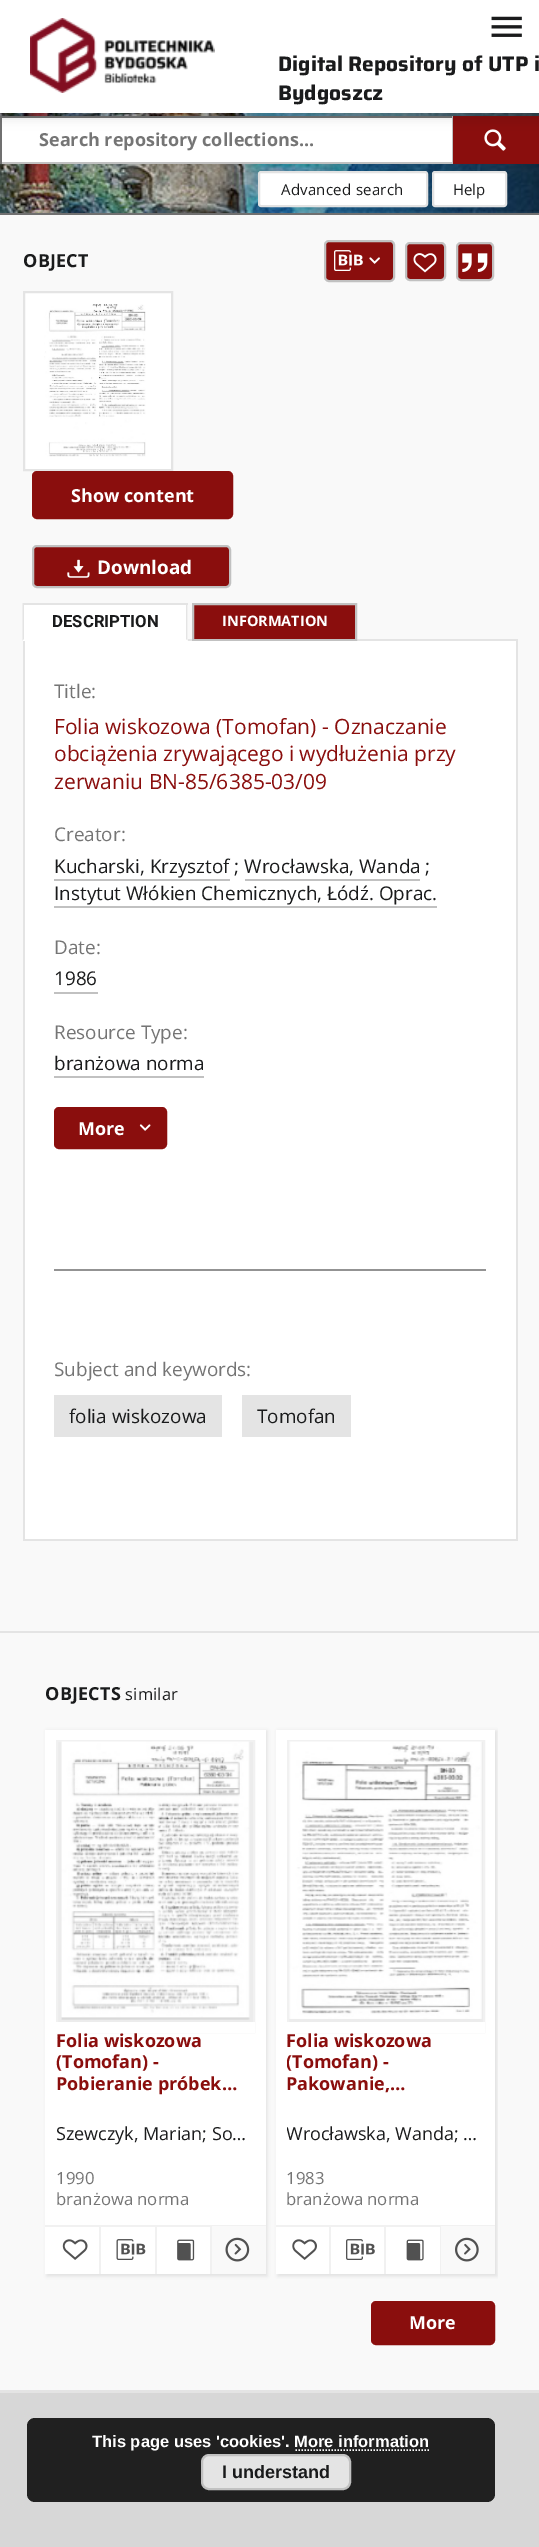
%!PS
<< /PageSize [539 2547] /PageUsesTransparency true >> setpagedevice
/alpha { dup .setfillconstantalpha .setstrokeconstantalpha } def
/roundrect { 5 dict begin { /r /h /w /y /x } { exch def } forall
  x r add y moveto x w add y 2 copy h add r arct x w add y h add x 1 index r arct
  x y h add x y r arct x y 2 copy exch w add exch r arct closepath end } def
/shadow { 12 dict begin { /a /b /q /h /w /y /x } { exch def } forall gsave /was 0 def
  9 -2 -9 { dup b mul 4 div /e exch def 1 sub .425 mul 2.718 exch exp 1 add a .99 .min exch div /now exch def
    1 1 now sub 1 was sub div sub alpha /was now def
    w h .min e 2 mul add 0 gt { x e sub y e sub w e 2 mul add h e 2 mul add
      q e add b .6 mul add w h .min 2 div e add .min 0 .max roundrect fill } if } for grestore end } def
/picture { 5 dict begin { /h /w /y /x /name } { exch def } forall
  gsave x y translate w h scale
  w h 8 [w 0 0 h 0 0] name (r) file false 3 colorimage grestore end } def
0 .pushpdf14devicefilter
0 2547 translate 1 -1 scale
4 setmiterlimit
0.976 setgray
0 0 539 2547 rectfill
(img3.rgb) 0 113 539 100 picture
1 setgray
2 118 450 44 rectfill
0.439 setgray
0 116 453 2 rectfill
0.757 setgray
452 116 1 48 rectfill
0 162 453 2 rectfill
0.439 setgray
0 116 2 48 rectfill
0.541 0.055 0.051 setrgbcolor
453 116 86 48 rectfill
(img4.rgb) 484 129 22 22 picture
0 setgray
0 2 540 112 0 7.5 0.08 shadow
0 6 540 113 0 4 0.06 shadow
2 5 537 109 0 3 0.06 shadow
1 setgray
0 0 539 113 rectfill
(img1.rgb) 491 16 31 21 picture
(img2.rgb) 30 18 185 75 picture
/Saira-Bold [21 0 0 -21 0 0] selectfont
0.102 0.106 0.11 setrgbcolor
278 71 moveto (Digital Repository of UTP i) show
278 100 moveto (Bydgoszcz) show
0.439 setgray
0 213 539 2 rectfill
/OpenSans-Bold [18 0 0 -18 0 0] selectfont
0.459 setgray
39 146 moveto (Search repository collections...) show
1 setgray
259 172 168 34 2 roundrect gsave fill grestore
0.886 setgray
2 setlinewidth
stroke
/OpenSans-Regular [15 0 0 -15 0 0] selectfont
0.102 0.106 0.11 setrgbcolor
281 195 moveto 0.25 0 (Advanced search) ashow
1 setgray
433 172 73 34 2 roundrect gsave fill grestore
0.886 setgray
stroke
0.102 0.106 0.11 setrgbcolor
453 195 moveto (Help) show
/OpenSans-Bold [18 0 0 -18 0 0] selectfont
23 267 moveto 0.25 0 (OBJECT) ashow
0.541 0.055 0.051 setrgbcolor
325 241 69 40 4 roundrect gsave fill grestore
0.757 setgray
stroke
(img5.rgb) 334 250 29 21 picture
(img6.rgb) 369 257 11 7 picture
0.541 0.055 0.051 setrgbcolor
406 243 39 37 4 roundrect gsave fill grestore
0.757 setgray
stroke
(img7.rgb) 413 253 24 20 picture
0.541 0.055 0.051 setrgbcolor
457 243 36 37 4 roundrect gsave fill grestore
0.757 setgray
stroke
(img8.rgb) 462 253 26 19 picture
1 setgray
newpath 24 292 moveto 172 292 lineto 172 470 lineto 24 470 lineto closepath gsave fill grestore
0.894 setgray
stroke
(img9.rgb) 44 304 102 153 picture
0.541 0.055 0.051 setrgbcolor
33 472 199 46 4 roundrect gsave fill grestore
stroke
1 setgray
71 502 moveto (Show content) show
0.541 0.055 0.051 setrgbcolor
33 546 197 41 4 roundrect gsave fill grestore
0.757 setgray
stroke
(img10.rgb) 67 559 23 19 picture
/OpenSans-Bold [18.9 0 0 -18.9 0 0] selectfont
1 setgray
97 574 moveto (Download) show
0.894 setgray
188 639 330 2 rectfill
1 setgray
23 605 165 36 rectfill
0.894 setgray
23 603 165 2 rectfill
newpath 187.5 603 moveto 187.5 640.5 lineto 186 639 lineto 186 604.5 lineto closepath fill
newpath 22.5 640.5 moveto 22.5 603 lineto 24 604.5 lineto 24 639 lineto closepath fill
/Roboto-Bold [16.75 0 0 -16.75 0 0] selectfont
0.102 0.106 0.11 setrgbcolor
52 627 moveto (DESCRIPTION) show
0.541 0.055 0.051 setrgbcolor
newpath 193 604 moveto 356 604 lineto 356 640 lineto 193 640 lineto closepath gsave fill grestore
0.757 setgray
stroke
/OpenSans-Bold [14.5 0 0 -14.5 0 0] selectfont
1 setgray
222 626 moveto (INFORMATION) show
25 641 491 898 rectfill
0.894 setgray
516 641 2 900 rectfill
23 1539 495 2 rectfill
23 641 2 900 rectfill
/OpenSans-Regular [18.9 0 0 -18.9 0 0] selectfont
0.459 setgray
54 698 moveto (Title:) show
/OpenSans-Regular [21 0 0 -21 0 0] selectfont
0.541 0.055 0.051 setrgbcolor
54 734 moveto (Folia wiskozowa \(Tomofan\) - Oznaczanie) show
54 761 moveto (obciążenia zrywającego i wydłużenia przy) show
54 789 moveto (zerwaniu BN-85/6385-03/09) show
/OpenSans-Regular [18.9 0 0 -18.9 0 0] selectfont
0.459 setgray
54 841 moveto (Creator:) show
0.102 0.106 0.11 setrgbcolor
54 873 moveto (Kucharski, Krzysztof ; Wrocławska, Wanda ;) show
0.757 setgray
54 879 176 2 rectfill
245 879 175 2 rectfill
0.102 0.106 0.11 setrgbcolor
54 900 moveto (Instytut Włókien Chemicznych, Łódź. Oprac.) show
0.757 setgray
54 906 383 2 rectfill
0.459 setgray
54 954 moveto (Date:) show
0.102 0.106 0.11 setrgbcolor
54 985 moveto (1986) show
0.757 setgray
54 992 44 2 rectfill
0.459 setgray
54 1039 moveto (Resource Type:) show
0.102 0.106 0.11 setrgbcolor
54 1070 moveto (branżowa norma) show
0.757 setgray
54 1076 150 2 rectfill
0.541 0.055 0.051 setrgbcolor
55 1108 111 40 4 roundrect gsave fill grestore
stroke
/OpenSans-Bold [18 0 0 -18 0 0] selectfont
1 setgray
78 1135 moveto (More) show
(img11.rgb) 139 1124 12 7 picture
0.576 setgray
54 1269 432 2 rectfill
/OpenSans-Regular [18.9 0 0 -18.9 0 0] selectfont
0.459 setgray
54 1376 moveto (Subject and keywords:) show
0.894 setgray
54 1395 168 42 rectfill
0.102 0.106 0.11 setrgbcolor
69 1423 moveto (folia wiskozowa) show
0.894 setgray
242 1395 109 42 rectfill
0.102 0.106 0.11 setrgbcolor
257 1423 moveto (Tomofan) show
0.894 setgray
0 1631 539 2 rectfill
0 2390 539 3 rectfill
/OpenSans-Bold [18 0 0 -18 0 0] selectfont
0.102 0.106 0.11 setrgbcolor
45 1700 moveto 0.25 0 (OBJECTS) ashow
/OpenSans-Regular [16.5 0 0 -16.5 0 0] selectfont
125 1700 moveto 0.25 0 (similar) ashow
0.871 setgray
47 1731 220 545 0 2 1 shadow
1 setgray
45 1730 221 544 rectfill
0.925 setgray
58 1742 195 280 rectfill
0.945 setgray
57 1741 197 291 rectstroke
(img12.rgb) 61 1741 189 279 picture
1 setgray
56 2022 199 11 rectfill
/OpenSans-Bold [18 0 0 -18 0 0] selectfont
0.541 0.055 0.051 setrgbcolor
56 2047 moveto (Folia wiskozowa) show
56 2068 moveto (\(Tomofan\) -) show
56 2090 moveto (Pobieranie próbek…) show
/OpenSans-Regular [18 0 0 -18 0 0] selectfont
0.102 0.106 0.11 setrgbcolor
56 2140 moveto (Szewczyk, Marian; So…) show
/OpenSans-Regular [16.75 0 0 -16.75 0 0] selectfont
0.459 setgray
56 2184 moveto (1990) show
56 2205 moveto (branżowa norma) show
0.945 setgray
45 2225 221 2 rectfill
99 2226 2 48 rectfill
(img13.rgb) 62 2239 26 21 picture
155 2226 2 48 rectfill
(img14.rgb) 116 2239 30 21 picture
210 2226 2 48 rectfill
(img15.rgb) 177 2239 18 22 picture
0.976 setgray
212 2226 54 48 rectfill
(img16.rgb) 225 2237 25 25 picture
gsave
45 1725 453 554 rectclip
0.871 setgray
278 1731 219 545 0 2 1 shadow
grestore
1 setgray
276 1730 219 544 rectfill
0.925 setgray
289 1742 194 280 rectfill
0.945 setgray
288 1741 196 291 rectstroke
(img17.rgb) 289 1741 193 278 picture
1 setgray
287 2022 198 11 rectfill
/OpenSans-Bold [18 0 0 -18 0 0] selectfont
0.541 0.055 0.051 setrgbcolor
286 2047 moveto (Folia wiskozowa) show
gsave
287 2022 198 74 rectclip
286 2068 moveto (\(Tomofan\) -) show
grestore
286 2090 moveto (Pakowanie,…) show
gsave
287 2123 198 22 rectclip
/OpenSans-Regular [18 0 0 -18 0 0] selectfont
0.102 0.106 0.11 setrgbcolor
286 2140 moveto (Wrocławska, Wanda) show
grestore
/OpenSans-Regular [18 0 0 -18 0 0] selectfont
0.102 0.106 0.11 setrgbcolor
454 2140 moveto (; …) show
/OpenSans-Regular [16.75 0 0 -16.75 0 0] selectfont
0.459 setgray
286 2184 moveto (1983) show
286 2205 moveto (branżowa norma) show
0.945 setgray
276 2225 219 2 rectfill
329 2226 2 48 rectfill
(img18.rgb) 292 2239 25 21 picture
384 2226 2 48 rectfill
(img19.rgb) 346 2239 29 21 picture
440 2226 1 48 rectfill
(img20.rgb) 406 2239 18 22 picture
0.976 setgray
441 2226 54 48 rectfill
(img21.rgb) 455 2237 24 25 picture
0.541 0.055 0.051 setrgbcolor
372 2302 122 42 4 roundrect gsave fill grestore
stroke
/OpenSans-Bold [18 0 0 -18 0 0] selectfont
1 setgray
409 2329 moveto (More) show
0.843 setgray
0 2393 539 154 rectfill
0.85 alpha
0 setgray
27 2418 468 84 8 roundrect fill
/LiberationSans-Bold [16.5 0 0 -16.5 0 0] selectfont
1 alpha
1 setgray
92 2447 moveto (This page uses 'cookies'. More information) show
1.5 setlinewidth
[1.5 1.5] 0 setdash
newpath 295.5 2450 moveto 429 2450 lineto stroke
0.894 setgray
202 2455 148 34 7 roundrect gsave fill grestore
0.757 setgray
2 setlinewidth
[] 0 setdash
stroke
/LiberationSans-Bold [18 0 0 -18 0 0] selectfont
0.102 0.106 0.11 setrgbcolor
222 2478 moveto (I understand) show
.poppdf14devicefilter showpage
